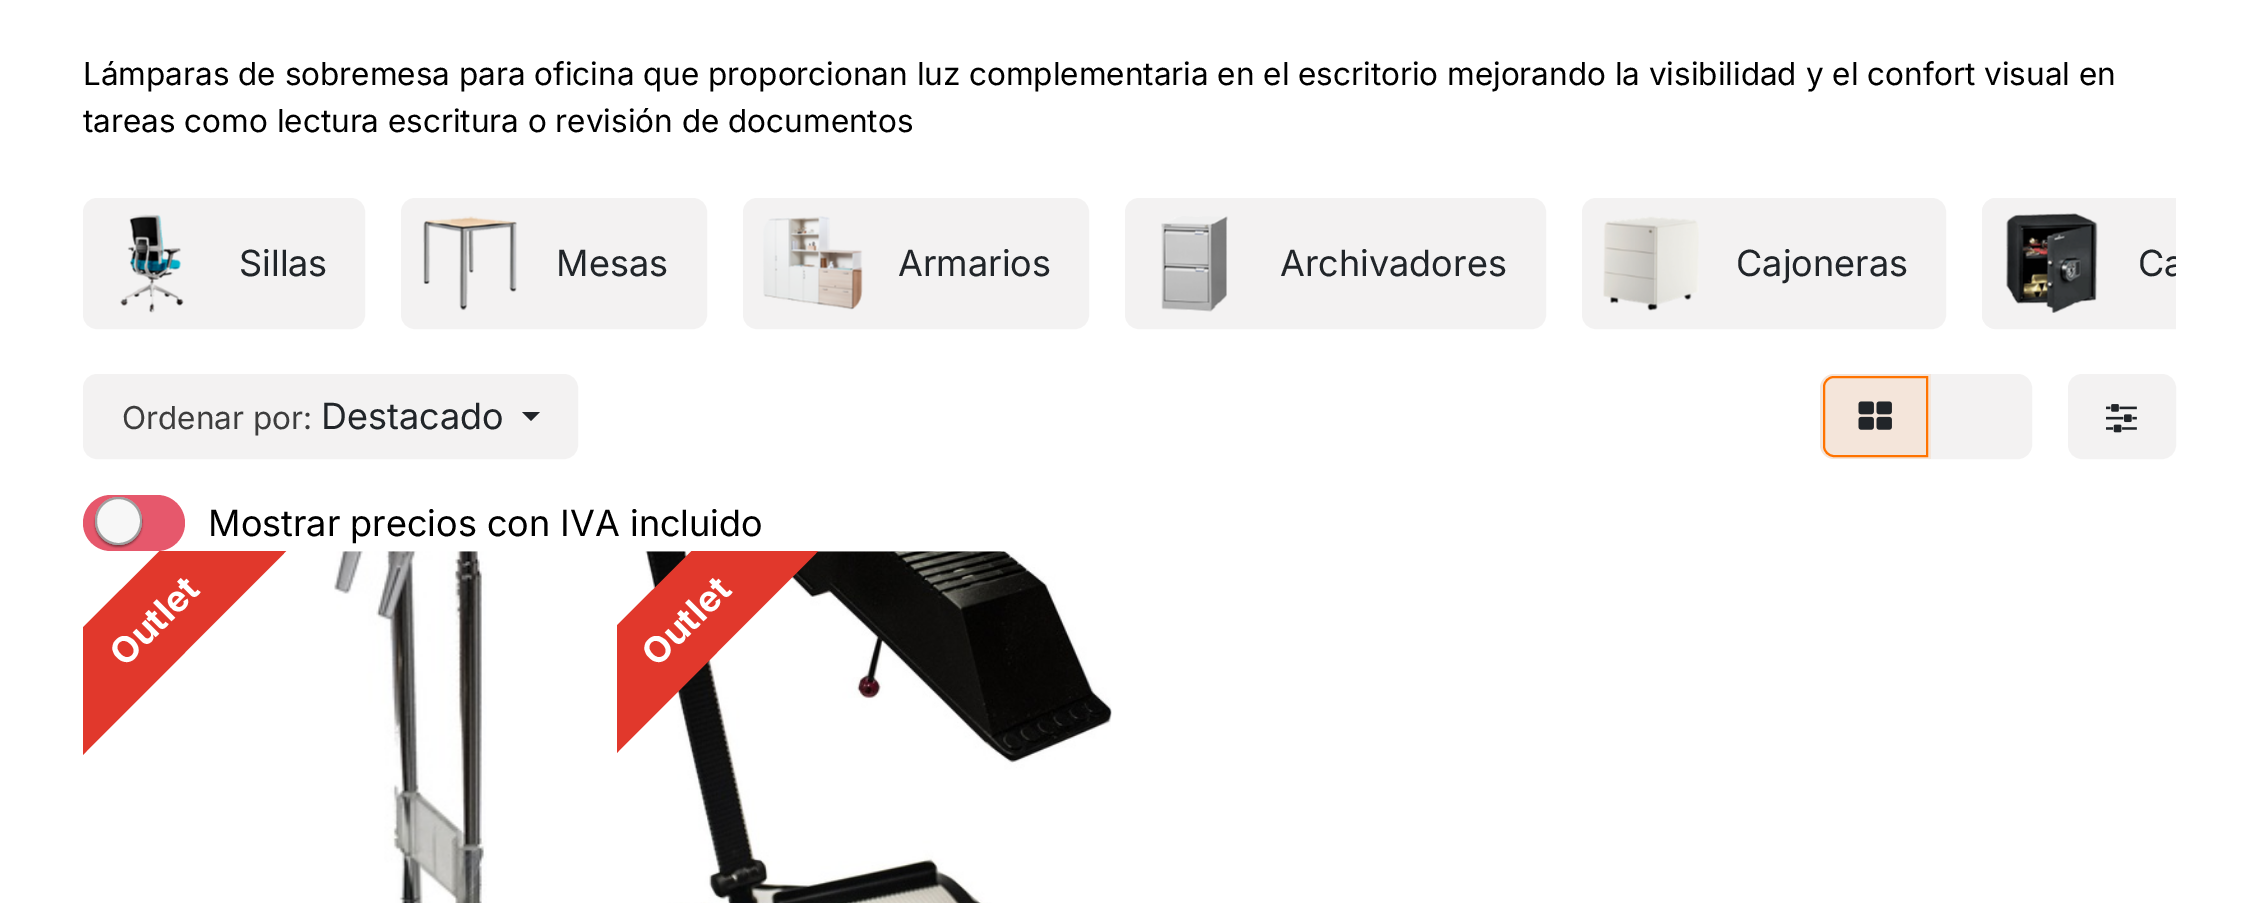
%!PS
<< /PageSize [2259 903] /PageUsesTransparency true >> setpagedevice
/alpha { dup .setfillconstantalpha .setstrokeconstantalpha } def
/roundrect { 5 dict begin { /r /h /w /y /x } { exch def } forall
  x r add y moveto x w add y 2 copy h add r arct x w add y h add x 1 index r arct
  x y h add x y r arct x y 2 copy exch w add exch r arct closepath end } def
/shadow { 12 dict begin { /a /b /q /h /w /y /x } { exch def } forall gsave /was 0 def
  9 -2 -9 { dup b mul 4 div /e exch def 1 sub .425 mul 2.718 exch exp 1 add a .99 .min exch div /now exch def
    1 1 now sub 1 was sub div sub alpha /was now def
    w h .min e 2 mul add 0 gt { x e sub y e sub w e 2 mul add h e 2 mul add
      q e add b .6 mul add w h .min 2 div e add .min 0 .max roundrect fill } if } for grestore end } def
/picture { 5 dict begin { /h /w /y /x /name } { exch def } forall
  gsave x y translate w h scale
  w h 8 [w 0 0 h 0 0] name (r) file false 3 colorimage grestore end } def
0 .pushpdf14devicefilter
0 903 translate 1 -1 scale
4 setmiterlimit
1 setgray
0 0 2259 903 rectfill
/Inter-Regular [31.5 0 0 -31.5 0 0] selectfont
0 setgray
83 85 moveto (Lámparas de sobremesa para oficina que proporcionan luz complementaria en el escritorio mejorando la visibilidad y el confort visual en) show
83 132 moveto (tareas como lectura escritura o revisión de documentos) show
0.953 0.949 0.949 setrgbcolor
84 199 280 129 13 roundrect gsave fill grestore
2 setlinewidth
stroke
(img1.rgb) 120 214 64 99 picture
/Inter-Regular [36 0 0 -36 0 0] selectfont
0.129 0.145 0.161 setrgbcolor
239 276 moveto (Sillas) show
0.953 0.949 0.949 setrgbcolor
402 199 304 129 13 roundrect gsave fill grestore
stroke
(img2.rgb) 423 216 94 95 picture
0.129 0.145 0.161 setrgbcolor
556 276 moveto (Mesas) show
0.953 0.949 0.949 setrgbcolor
744 199 344 129 13 roundrect gsave fill grestore
stroke
(img3.rgb) 763 216 100 94 picture
0.129 0.145 0.161 setrgbcolor
898 276 moveto (Armarios) show
0.953 0.949 0.949 setrgbcolor
1126 199 419 129 13 roundrect gsave fill grestore
stroke
(img4.rgb) 1161 216 67 96 picture
0.129 0.145 0.161 setrgbcolor
1280 276 moveto (Archivadores) show
0.953 0.949 0.949 setrgbcolor
1583 199 362 129 13 roundrect gsave fill grestore
stroke
(img5.rgb) 1603 216 96 95 picture
0.129 0.145 0.161 setrgbcolor
1736 276 moveto (Cajoneras) show
0.953 0.949 0.949 setrgbcolor
newpath 1996 198 moveto 2176 198 lineto 2176 329 lineto 1996 329 lineto 1988.5 329 1982 322.5 1982 315 curveto 1982 212 lineto 1982 204.5 1988.5 198 1996 198 curveto closepath fill
gsave
83 198 2093 140 rectclip
1983 199 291 129 13 roundrect stroke
grestore
(img6.rgb) 2006 213 92 100 picture
gsave
83 198 2093 140 rectclip
0.129 0.145 0.161 setrgbcolor
2138 276 moveto (Ca) show
grestore
84 375 493 83 13 roundrect gsave fill grestore
stroke
/Inter-Regular [31.5 0 0 -31.5 0 0] selectfont
0.239 setgray
122 429 moveto (Ordenar por:) show
/Inter-Regular [36 0 0 -36 0 0] selectfont
0.129 0.145 0.161 setrgbcolor
321 429 moveto (Destacado) show
newpath 522 412 moveto 540 412 lineto 531 421 lineto closepath fill
0.953 0.949 0.949 setrgbcolor
newpath 1929 375 moveto 2018 375 lineto 2025 375 2031 381 2031 388 curveto 2031 445 lineto 2031 452 2025 458 2018 458 curveto 1929 458 lineto closepath gsave fill grestore
stroke
0.957 0.898 0.855 setrgbcolor
newpath 1834 374 moveto 1931 374 lineto 1931 459 lineto 1834 459 lineto 1826.5 459 1820 452.5 1820 445 curveto 1820 388 lineto 1820 380.5 1826.5 374 1834 374 curveto closepath fill
1 0.451 0 setrgbcolor
newpath 1834 377 moveto 1927 377 lineto 1927 456 lineto 1834 456 lineto 1828.5 456 1824 451.5 1824 446 curveto 1824 387 lineto 1824 381.5 1828.5 377 1834 377 curveto closepath stroke
(img7.rgb) 1858 401 34 29 picture
0.953 0.949 0.949 setrgbcolor
2069 375 106 83 13 roundrect gsave fill grestore
stroke
(img8.rgb) 2106 404 31 29 picture
0.902 0.345 0.424 setrgbcolor
83 495 102 56 28 roundrect fill
0 setgray
95 500 47 47 23.5 1 0.4 shadow
0.969 setgray
95 497 47 48 23.5 roundrect fill
0.4 alpha
0.102 setgray
96 498 45 46 22.5 roundrect stroke
1 alpha
0 setgray
208 536 moveto (Mostrar precios con IVA incluido) show
gsave
83 551 498 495 rectclip
0.882 0.22 0.173 setrgbcolor
newpath -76 786 moveto 319 392 lineto 382 455 lineto -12 850 lineto closepath fill
grestore
/Inter-Bold [36 0 0 -36 0 0] selectfont
1 setgray
gsave 125 668 translate -45 rotate 0 0 moveto (Outlet) show grestore
(img9.rgb) 334 551 153 352 picture
(img10.rgb) 645 551 467 352 picture
gsave
617 551 495 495 rectclip
0.882 0.22 0.173 setrgbcolor
newpath 456 786 moveto 851 392 lineto 914 455 lineto 520 850 lineto closepath fill
grestore
gsave 657 668 translate -45 rotate 0 0 moveto (Outlet) show grestore
.poppdf14devicefilter showpage
